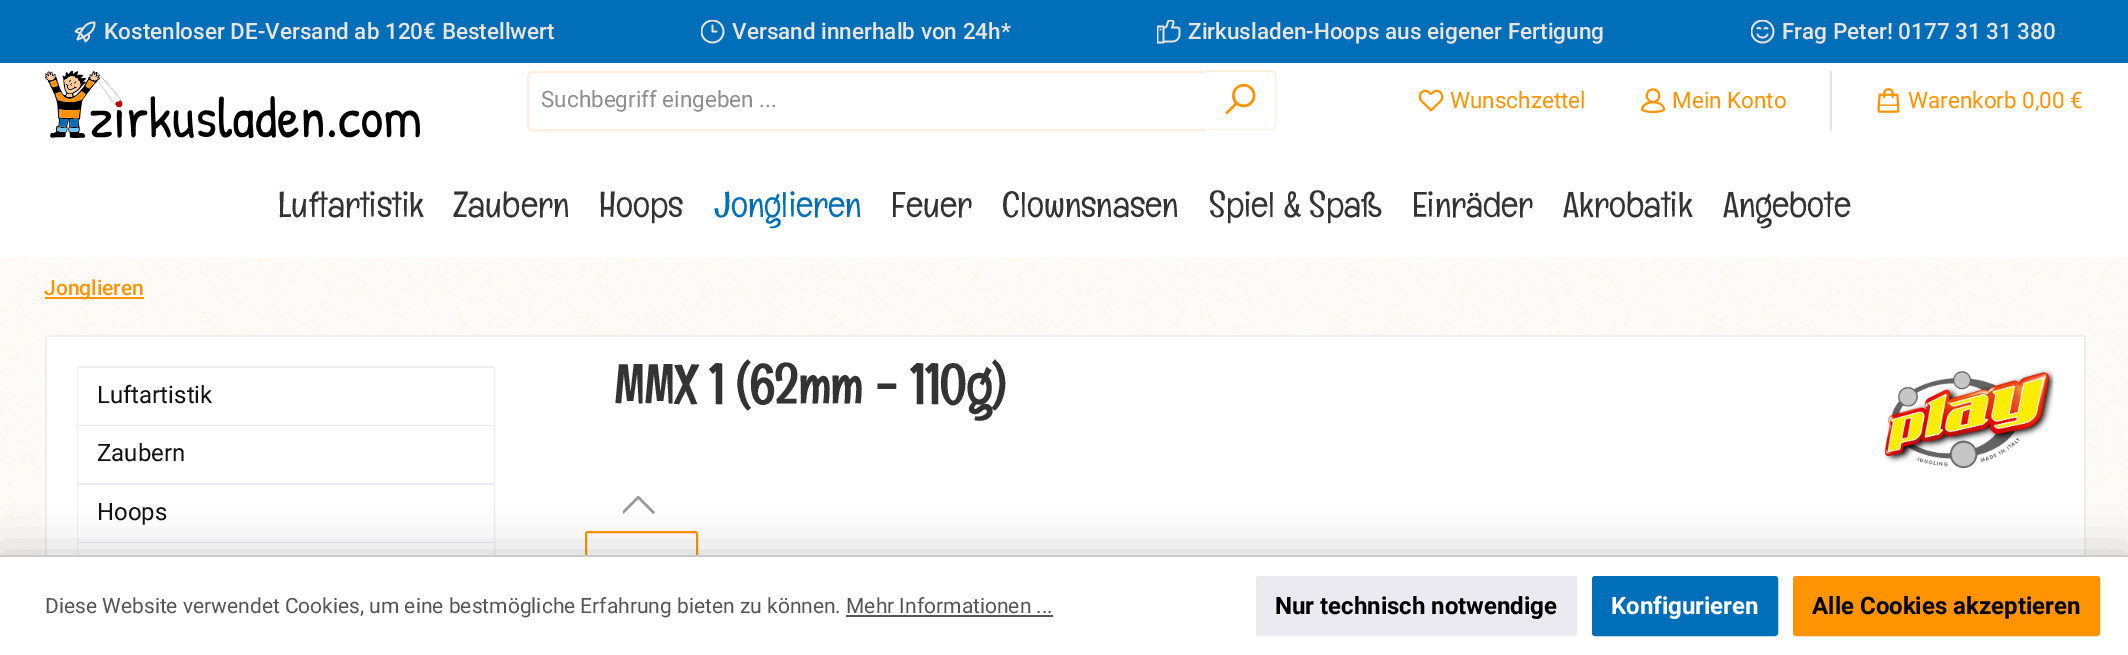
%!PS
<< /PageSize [2128 655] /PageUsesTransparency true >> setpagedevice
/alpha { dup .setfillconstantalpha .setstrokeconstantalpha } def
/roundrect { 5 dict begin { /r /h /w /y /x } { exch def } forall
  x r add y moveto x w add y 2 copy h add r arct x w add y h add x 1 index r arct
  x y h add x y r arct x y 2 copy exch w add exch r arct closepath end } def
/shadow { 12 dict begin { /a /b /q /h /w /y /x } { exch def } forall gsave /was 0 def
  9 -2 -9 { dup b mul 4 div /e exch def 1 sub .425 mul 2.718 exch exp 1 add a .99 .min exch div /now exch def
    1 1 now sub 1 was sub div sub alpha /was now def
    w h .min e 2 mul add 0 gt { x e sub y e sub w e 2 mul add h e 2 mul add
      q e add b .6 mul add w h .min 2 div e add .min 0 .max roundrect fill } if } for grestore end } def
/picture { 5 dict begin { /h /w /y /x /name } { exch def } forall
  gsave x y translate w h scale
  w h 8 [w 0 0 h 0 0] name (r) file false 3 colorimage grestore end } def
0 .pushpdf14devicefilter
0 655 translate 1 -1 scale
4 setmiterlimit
1 setgray
0 0 2128 655 rectfill
(img1.rgb) 0 258 2128 297 picture
0 0.431 0.722 setrgbcolor
0 0 2128 63 rectfill
(img2.rgb) 74 21 22 22 picture
/Roboto-Medium [22.5 0 0 -22.5 0 0] selectfont
0.914 0.894 0.871 setrgbcolor
104 39 moveto (Kostenloser DE-Versand ab 120€ Bestellwert) show
(img3.rgb) 701 20 24 24 picture
732 39 moveto (Versand innerhalb von 24h*) show
(img4.rgb) 1157 20 24 24 picture
1188 39 moveto (Zirkusladen-Hoops aus eigener Fertigung) show
(img5.rgb) 1751 20 24 24 picture
1782 39 moveto (Frag Peter! 0177 31 31 380) show
(img6.rgb) 45 71 375 67 picture
1 0.933 0.867 setrgbcolor
2 setlinewidth
newpath 533 72 moveto 1207 72 lineto 1207 130 lineto 533 130 lineto 530 130 528 128 528 125 curveto 528 77 lineto 528 74 530 72 533 72 curveto closepath stroke
/Roboto-Regular [22.5 0 0 -22.5 0 0] selectfont
0.557 setgray
541 107 moveto (Suchbegriff eingeben ...) show
1 setgray
newpath 1206 71 moveto 1271 71 lineto 1274.5 71 1277 73.5 1277 77 curveto 1277 125 lineto 1277 128.5 1274.5 131 1271 131 curveto 1206 131 lineto closepath fill
1 0.933 0.867 setrgbcolor
newpath 1206 70 moveto 1270 70 lineto 1274 70 1276 73 1276 76 curveto 1276 124 lineto 1276 128 1274 130 1270 130 curveto 1206 130 lineto closepath 1206 72 moveto 1270 72 lineto 1273 72 1275 74 1275 76 curveto 1275 124 lineto 1275 127 1273 129 1270 129 curveto 1206 129 lineto closepath eofill
(img7.rgb) 1225 83 31 32 picture
(img8.rgb) 1418 89 26 23 picture
1 0.576 0.004 setrgbcolor
1450 108 moveto (Wunschzettel) show
(img9.rgb) 1640 88 26 26 picture
1672 108 moveto (Mein Konto) show
0.894 0.906 0.918 setrgbcolor
1830 71 2 60 rectfill
(img10.rgb) 1877 88 23 25 picture
1 0.576 0.004 setrgbcolor
1908 108 moveto (Warenkorb 0,00 €) show
/Englebert-Regular [36 0 0 -36 0 0] selectfont
0.2 setgray
278 217 moveto (Luftartistik) show
453 217 moveto (Zaubern) show
599 217 moveto (Hoops) show
0 0.431 0.722 setrgbcolor
714 217 moveto (Jonglieren) show
0.2 setgray
891 217 moveto (Feuer) show
1002 217 moveto (Clownsnasen) show
1209 217 moveto (Spiel & Spaß) show
1412 217 moveto (Einräder) show
1563 217 moveto (Akrobatik) show
1723 217 moveto (Angebote) show
1 0.576 0.004 setrgbcolor
45 297 99 2 rectfill
/Roboto-Medium [21 0 0 -21 0 0] selectfont
44 295 moveto (Jonglieren) show
1 setgray
newpath 48 335 moveto 555 335 lineto 555 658 lineto 48 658 lineto 46.5 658 45 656.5 45 655 curveto 45 338 lineto 45 336.5 46.5 335 48 335 curveto closepath fill
0.933 setgray
47 335 508 2 rectfill
45 336 2 219 rectfill
78 367 416 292 2 roundrect stroke
0.918 0.918 0.941 setrgbcolor
78 425 416 1 rectfill
1 setgray
78 368 416 57 rectfill
/Roboto-Regular [24 0 0 -24 0 0] selectfont
0.067 setgray
97 403 moveto (Luftartistik) show
0.918 0.918 0.941 setrgbcolor
78 483 416 2 rectfill
1 setgray
78 426 416 57 rectfill
0.067 setgray
97 461 moveto (Zaubern) show
0.918 0.918 0.941 setrgbcolor
78 542 416 1 rectfill
1 setgray
78 485 416 57 rectfill
0.067 setgray
97 520 moveto (Hoops) show
1 setgray
78 543 416 12 rectfill
newpath 555 335 moveto 2082 335 lineto 2083.5 335 2085 336.5 2085 338 curveto 2085 655 lineto 2085 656.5 2083.5 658 2082 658 curveto 555 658 lineto closepath fill
0.933 setgray
555 335 1529 2 rectfill
2084 336 2 219 rectfill
/Englebert-Bold [54 0 0 -54 0 0] selectfont
0.2 setgray
614 404 moveto (MMX 1 \(62mm - 110g\)) show
(img11.rgb) 1883 369 171 100 picture
(img12.rgb) 623 495 32 19 picture
1 0.576 0.004 setrgbcolor
586 532 111 96 2 roundrect stroke
0 setgray
0 555 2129 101 0 22.5 0.2 shadow
1 setgray
0 557 2128 98 rectfill
0.8 setgray
0 555 2128 2 rectfill
/Roboto-Regular [21 0 0 -21 0 0] selectfont
0.333 setgray
45 613 moveto (Diese Website verwendet Cookies, um eine bestmögliche Erfahrung bieten zu können. Mehr Informationen ...) show
846 615 207 2 rectfill
0.918 0.918 0.941 setrgbcolor
1257 577 319 58 2 roundrect gsave fill grestore
stroke
/Roboto-Bold [24 0 0 -24 0 0] selectfont
0 setgray
1275 614 moveto (Nur technisch notwendige) show
0 0.431 0.722 setrgbcolor
1593 577 184 58 2 roundrect gsave fill grestore
stroke
1 setgray
1611 614 moveto (Konfigurieren) show
1 0.576 0.004 setrgbcolor
1794 577 305 58 2 roundrect gsave fill grestore
stroke
0 setgray
1812 614 moveto (Alle Cookies akzeptieren) show
.poppdf14devicefilter showpage
